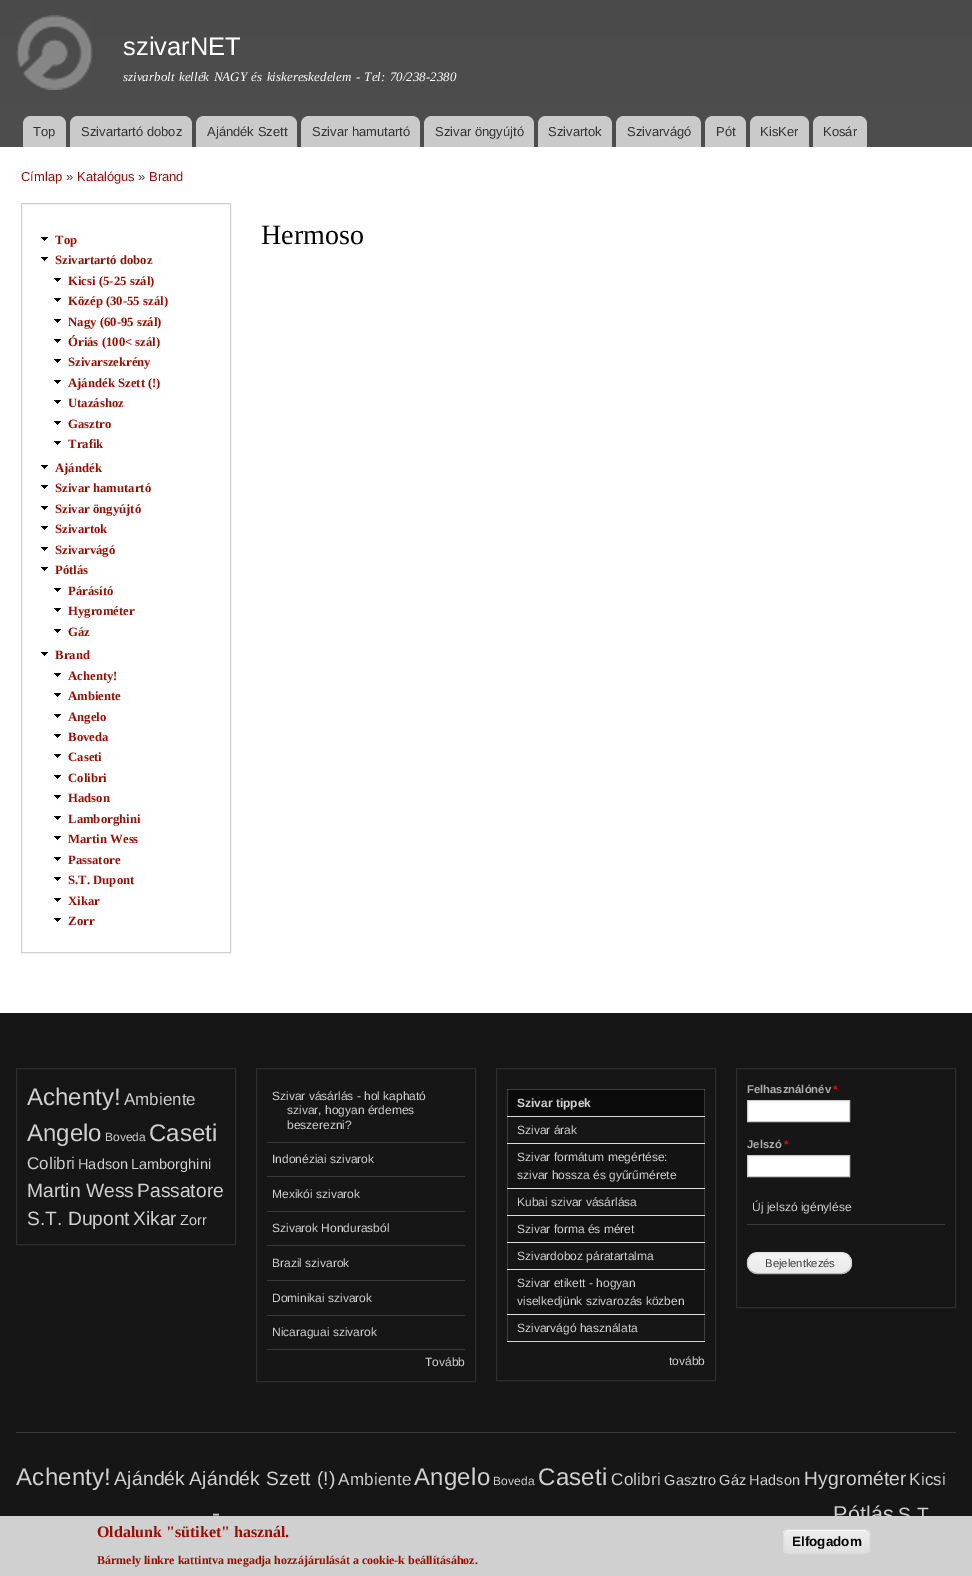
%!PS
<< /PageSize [972 1576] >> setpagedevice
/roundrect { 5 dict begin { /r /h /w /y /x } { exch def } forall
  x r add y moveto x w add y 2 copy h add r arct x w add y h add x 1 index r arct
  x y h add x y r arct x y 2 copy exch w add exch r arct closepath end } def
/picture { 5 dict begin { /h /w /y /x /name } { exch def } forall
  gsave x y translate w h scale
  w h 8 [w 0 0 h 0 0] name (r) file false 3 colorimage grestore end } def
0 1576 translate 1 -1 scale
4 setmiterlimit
1 setgray
0 0 972 1576 rectfill
gsave newpath 0 0 moveto 972 0 lineto 972 147 lineto 0 147 lineto closepath clip newpath
<< /ShadingType 2 /ColorSpace /DeviceRGB /Coords [486 0 486 147] /Extend [true true] /Function << /FunctionType 2 /Domain [0 1] /C0 [0.29 0.29 0.29] /C1 [0.306 0.306 0.306] /N 1 >> >> shfill grestore
(img1.rgb) 16 15 77 75 picture
/LiberationSans-Regular [25.5 0 0 -25.5 0 0] selectfont
123 55 moveto (szivarNET) show
/LiberationSerif-Italic [13 0 0 -13 0 0] selectfont
123 81 moveto 1.25 0 32 (szivarbolt kellék NAGY és kiskereskedelem - Tel: 70/238-2380) widthshow
0.792 setgray
newpath 31 116 moveto 58 116 lineto 62.5 116 66 119.5 66 124 curveto 66 147 lineto 23 147 lineto 23 124 lineto 23 119.5 26.5 116 31 116 curveto closepath fill
/LiberationSans-Regular [13 0 0 -13 0 0] selectfont
0.2 setgray
33 136 moveto (Top) show
0.792 setgray
newpath 78 116 moveto 184 116 lineto 188.5 116 192 119.5 192 124 curveto 192 147 lineto 70 147 lineto 70 124 lineto 70 119.5 73.5 116 78 116 curveto closepath fill
0.2 setgray
81 136 moveto (Szivartartó doboz) show
0.792 setgray
newpath 204 116 moveto 289 116 lineto 293.5 116 297 119.5 297 124 curveto 297 147 lineto 196 147 lineto 196 124 lineto 196 119.5 199.5 116 204 116 curveto closepath fill
0.2 setgray
207 136 moveto (Ajándék Szett) show
0.792 setgray
newpath 309 116 moveto 412 116 lineto 416.5 116 420 119.5 420 124 curveto 420 147 lineto 301 147 lineto 301 124 lineto 301 119.5 304.5 116 309 116 curveto closepath fill
0.2 setgray
312 136 moveto (Szivar hamutartó) show
0.792 setgray
newpath 432 116 moveto 526 116 lineto 530.5 116 534 119.5 534 124 curveto 534 147 lineto 424 147 lineto 424 124 lineto 424 119.5 427.5 116 432 116 curveto closepath fill
0.2 setgray
435 136 moveto (Szivar öngyújtó) show
0.792 setgray
newpath 546 116 moveto 604 116 lineto 608.5 116 612 119.5 612 124 curveto 612 147 lineto 538 147 lineto 538 124 lineto 538 119.5 541.5 116 546 116 curveto closepath fill
0.2 setgray
548 136 moveto (Szivartok) show
0.792 setgray
newpath 624 116 moveto 693 116 lineto 697.5 116 701 119.5 701 124 curveto 701 147 lineto 616 147 lineto 616 124 lineto 616 119.5 619.5 116 624 116 curveto closepath fill
0.2 setgray
627 136 moveto (Szivarvágó) show
0.792 setgray
newpath 713 116 moveto 738 116 lineto 742.5 116 746 119.5 746 124 curveto 746 147 lineto 705 147 lineto 705 124 lineto 705 119.5 708.5 116 713 116 curveto closepath fill
0.2 setgray
716 136 moveto (Pót) show
0.792 setgray
newpath 758 116 moveto 801 116 lineto 805.5 116 809 119.5 809 124 curveto 809 147 lineto 750 147 lineto 750 124 lineto 750 119.5 753.5 116 758 116 curveto closepath fill
0.2 setgray
760 136 moveto (KisKer) show
0.792 setgray
newpath 821 116 moveto 859 116 lineto 863.5 116 867 119.5 867 124 curveto 867 147 lineto 813 147 lineto 813 124 lineto 813 119.5 816.5 116 821 116 curveto closepath fill
0.2 setgray
823 136 moveto (Kosár) show
0.592 0.063 0.012 setrgbcolor
21 181 moveto (Címlap) show
0.231 setgray
66 181 moveto (») show
0.592 0.063 0.012 setrgbcolor
77 181 moveto (Katalógus) show
0.231 setgray
138 181 moveto (») show
0.592 0.063 0.012 setrgbcolor
149 181 moveto (Brand) show
0.816 setgray
21.5 203.5 209 749 rectstroke
(img2.rgb) 41 237 7 4 picture
/LiberationSerif-Bold [12.75 0 0 -12.75 0 0] selectfont
0.592 0.063 0.012 setrgbcolor
55 244 moveto (Top) show
(img2.rgb) 41 257 7 4 picture
55 264 moveto (Szivartartó doboz) show
(img2.rgb) 54 278 7 4 picture
68 285 moveto (Kicsi \(5-25 szál\)) show
(img2.rgb) 54 298 7 4 picture
68 305 moveto (Közép \(30-55 szál\)) show
(img2.rgb) 54 319 7 4 picture
68 326 moveto (Nagy \(60-95 szál\)) show
(img2.rgb) 54 339 7 4 picture
68 346 moveto (Óriás \(100< szál\)) show
(img2.rgb) 54 359 7 4 picture
68 366 moveto (Szivarszekrény) show
(img2.rgb) 54 380 7 4 picture
68 387 moveto (Ajándék Szett \(!\)) show
(img2.rgb) 54 400 7 4 picture
68 407 moveto (Utazáshoz) show
(img2.rgb) 54 421 7 4 picture
68 428 moveto (Gasztro) show
(img2.rgb) 54 441 7 4 picture
68 448 moveto (Trafik) show
(img2.rgb) 41 465 7 4 picture
55 472 moveto (Ajándék) show
(img2.rgb) 41 485 7 4 picture
55 492 moveto (Szivar hamutartó) show
(img2.rgb) 41 506 7 4 picture
55 513 moveto (Szivar öngyújtó) show
(img2.rgb) 41 526 7 4 picture
55 533 moveto (Szivartok) show
(img2.rgb) 41 547 7 4 picture
55 554 moveto (Szivarvágó) show
(img2.rgb) 41 567 7 4 picture
55 574 moveto (Pótlás) show
(img2.rgb) 54 588 7 4 picture
68 595 moveto (Párásító) show
(img2.rgb) 54 608 7 4 picture
68 615 moveto (Hygrométer) show
(img2.rgb) 54 629 7 4 picture
68 636 moveto (Gáz) show
(img2.rgb) 41 652 7 4 picture
55 659 moveto (Brand) show
(img2.rgb) 54 673 7 4 picture
68 680 moveto (Achenty!) show
(img2.rgb) 54 693 7 4 picture
68 700 moveto (Ambiente) show
(img2.rgb) 54 714 7 4 picture
68 721 moveto (Angelo) show
(img2.rgb) 54 734 7 4 picture
68 741 moveto (Boveda) show
(img2.rgb) 54 754 7 4 picture
68 761 moveto (Caseti) show
(img2.rgb) 54 775 7 4 picture
68 782 moveto (Colibri) show
(img2.rgb) 54 795 7 4 picture
68 802 moveto (Hadson) show
(img2.rgb) 54 816 7 4 picture
68 823 moveto (Lamborghini) show
(img2.rgb) 54 836 7 4 picture
68 843 moveto (Martin Wess) show
(img2.rgb) 54 857 7 4 picture
68 864 moveto (Passatore) show
(img2.rgb) 54 877 7 4 picture
68 884 moveto (S.T. Dupont) show
(img2.rgb) 54 898 7 4 picture
68 905 moveto (Xikar) show
(img2.rgb) 54 918 7 4 picture
68 925 moveto (Zorr) show
/LiberationSerif-Regular [28 0 0 -28 0 0] selectfont
0 setgray
261 244 moveto (Hermoso) show
0.086 0.086 0.09 setrgbcolor
0 1013 972 503 rectfill
0.251 0.251 0.255 setrgbcolor
507 1089 1 253 rectfill
704 1116 1 28 rectfill
704 1188 1 28 rectfill
704 1242 1 28 rectfill
704 1314 1 28 rectfill
0.176 0.176 0.18 setrgbcolor
16.5 1068.5 219 176 rectstroke
/LiberationSans-Regular [24 0 0 -24 0 0] selectfont
0.816 0.816 0.82 setrgbcolor
27 1105 moveto (Achenty!) show
/LiberationSans-Regular [17 0 0 -17 0 0] selectfont
124 1105 moveto (Ambiente) show
/LiberationSans-Regular [24 0 0 -24 0 0] selectfont
27 1141 moveto (Angelo) show
/LiberationSans-Regular [12 0 0 -12 0 0] selectfont
105 1141 moveto (Boveda) show
/LiberationSans-Regular [24 0 0 -24 0 0] selectfont
149 1141 moveto (Caseti) show
/LiberationSans-Regular [17 0 0 -17 0 0] selectfont
27 1169 moveto (Colibri) show
/LiberationSans-Regular [14.5 0 0 -14.5 0 0] selectfont
78 1169 moveto (Hadson) show
131 1169 moveto (Lamborghini) show
/LiberationSans-Regular [19.25 0 0 -19.25 0 0] selectfont
27 1197 moveto (Martin Wess) show
137 1197 moveto (Passatore) show
27 1225 moveto (S.T. Dupont) show
133 1225 moveto (Xikar) show
/LiberationSans-Regular [14.5 0 0 -14.5 0 0] selectfont
180 1225 moveto (Zorr) show
0.176 0.176 0.18 setrgbcolor
256.5 1068.5 219 313 rectstroke
0.224 0.224 0.227 setrgbcolor
267 1142 198 1 rectfill
/LiberationSans-Regular [12 0 0 -12 0 0] selectfont
0.816 0.816 0.82 setrgbcolor
272 1100 moveto (Szivar vásárlás - hol kapható) show
287 1114 moveto (szivar, hogyan érdemes) show
287 1129 moveto (beszerezni?) show
0.224 0.224 0.227 setrgbcolor
267 1176 198 1 rectfill
0.816 0.816 0.82 setrgbcolor
272 1163 moveto (Indonéziai szivarok) show
0.224 0.224 0.227 setrgbcolor
267 1211 198 1 rectfill
0.816 0.816 0.82 setrgbcolor
272 1198 moveto (Mexikói szivarok) show
0.224 0.224 0.227 setrgbcolor
267 1245 198 1 rectfill
0.816 0.816 0.82 setrgbcolor
272 1232 moveto (Szivarok Hondurasból) show
0.224 0.224 0.227 setrgbcolor
267 1280 198 1 rectfill
0.816 0.816 0.82 setrgbcolor
272 1267 moveto (Brazil szivarok) show
0.224 0.224 0.227 setrgbcolor
267 1315 198 1 rectfill
0.816 0.816 0.82 setrgbcolor
272 1302 moveto (Dominikai szivarok) show
0.224 0.224 0.227 setrgbcolor
267 1349 198 1 rectfill
0.816 0.816 0.82 setrgbcolor
272 1336 moveto (Nicaraguai szivarok) show
425 1366 moveto (Tovább) show
0.176 0.176 0.18 setrgbcolor
496.5 1068.5 219 312 rectstroke
0.043 setgray
508 1090 196 26 rectfill
0.216 setgray
704 1090 1 27 rectfill
0.251 0.251 0.255 setrgbcolor
507 1089 198 1 rectfill
0.384 0.384 0.388 setrgbcolor
507 1089 1 1 rectfill
704 1089 1 1 rectfill
/LiberationSans-Bold [12 0 0 -12 0 0] selectfont
0.816 0.816 0.82 setrgbcolor
517 1107 moveto (Szivar tippek) show
0.835 setgray
507 1116 198 1 rectfill
0.89 setgray
507 1116 1 1 rectfill
704 1116 1 1 rectfill
/LiberationSans-Regular [12 0 0 -12 0 0] selectfont
0.816 0.816 0.82 setrgbcolor
517 1134 moveto (Szivar árak) show
0.075 0.075 0.078 setrgbcolor
508 1144 196 44 rectfill
0.239 0.239 0.243 setrgbcolor
704 1144 1 45 rectfill
0.867 setgray
507 1143 198 1 rectfill
0.91 setgray
507 1143 1 1 rectfill
704 1143 1 1 rectfill
0.816 0.816 0.82 setrgbcolor
517 1161 moveto (Szivar formátum megértése:) show
517 1179 moveto (szivar hossza és gyűrűmérete) show
0.867 setgray
507 1188 198 1 rectfill
0.91 setgray
507 1188 1 1 rectfill
704 1188 1 1 rectfill
0.816 0.816 0.82 setrgbcolor
517 1206 moveto (Kubai szivar vásárlása) show
0.075 0.075 0.078 setrgbcolor
508 1216 196 26 rectfill
0.239 0.239 0.243 setrgbcolor
704 1216 1 27 rectfill
0.867 setgray
507 1215 198 1 rectfill
0.91 setgray
507 1215 1 1 rectfill
704 1215 1 1 rectfill
0.816 0.816 0.82 setrgbcolor
517 1233 moveto (Szivar forma és méret) show
0.867 setgray
507 1242 198 1 rectfill
0.91 setgray
507 1242 1 1 rectfill
704 1242 1 1 rectfill
0.816 0.816 0.82 setrgbcolor
517 1260 moveto (Szivardoboz páratartalma) show
0.075 0.075 0.078 setrgbcolor
508 1270 196 44 rectfill
0.239 0.239 0.243 setrgbcolor
704 1270 1 45 rectfill
0.867 setgray
507 1269 198 1 rectfill
0.91 setgray
507 1269 1 1 rectfill
704 1269 1 1 rectfill
0.816 0.816 0.82 setrgbcolor
517 1287 moveto (Szivar etikett - hogyan) show
517 1305 moveto (viselkedjünk szivarozás közben) show
0.835 setgray
507 1341 198 1 rectfill
0.867 setgray
507 1341 1 1 rectfill
704 1341 1 1 rectfill
507 1314 198 1 rectfill
0.91 setgray
507 1314 1 1 rectfill
704 1314 1 1 rectfill
0.816 0.816 0.82 setrgbcolor
517 1332 moveto (Szivarvágó használata) show
669 1365 moveto (tovább) show
0.176 0.176 0.18 setrgbcolor
736.5 1068.5 219 239 rectstroke
/LiberationSans-Bold [11.25 0 0 -11.25 0 0] selectfont
0.678 0.678 0.682 setrgbcolor
747 1093 moveto (Felhasználónév) show
1 0 0 setrgbcolor
833 1093 moveto (*) show
1 setgray
newpath 747.5 1100.5 moveto 849.5 1100.5 lineto 849.5 1121.5 lineto 747.5 1121.5 lineto closepath gsave fill grestore
0.8 setgray
stroke
0.678 0.678 0.682 setrgbcolor
747 1148 moveto (Jelszó) show
1 0 0 setrgbcolor
784 1148 moveto (*) show
1 setgray
newpath 747.5 1155.5 moveto 849.5 1155.5 lineto 849.5 1176.5 lineto 747.5 1176.5 lineto closepath gsave fill grestore
0.8 setgray
stroke
0.224 0.224 0.227 setrgbcolor
747 1224 198 1 rectfill
/LiberationSans-Regular [12 0 0 -12 0 0] selectfont
0.816 0.816 0.82 setrgbcolor
752 1211 moveto (Új jelszó igénylése) show
(img3.rgb) 747 1253 105 21 picture
0.894 setgray
newpath 750.5 1255.5 moveto 752.5 1253.5 755 1252.5 758 1252.5 curveto 841 1252.5 lineto 844 1252.5 846.5 1253.5 848.5 1255.5 curveto stroke
0.824 setgray
newpath 848.5 1255.5 moveto 852.5 1259.5 852.5 1266.5 848.5 1270.5 curveto stroke
0.706 setgray
newpath 848.5 1270.5 moveto 846.5 1272.5 844 1273.5 841 1273.5 curveto 758 1273.5 lineto 755 1273.5 752.5 1272.5 750.5 1270.5 curveto stroke
0.824 setgray
newpath 750.5 1270.5 moveto 746.5 1266.5 746.5 1259.5 750.5 1255.5 curveto stroke
/LiberationSans-Regular [11.25 0 0 -11.25 0 0] selectfont
0.231 setgray
765 1267 moveto (Bejelentkezés) show
0.224 0.224 0.227 setrgbcolor
16 1432 940 1 rectfill
/LiberationSans-Regular [24 0 0 -24 0 0] selectfont
0.816 0.816 0.82 setrgbcolor
16 1485 moveto 0.25 0 (Achenty!) ashow
/LiberationSans-Regular [19.25 0 0 -19.25 0 0] selectfont
114 1485 moveto 0.25 0 (Ajándék) ashow
189 1485 moveto 0.25 0 (Ajándék Szett \(!\)) ashow
/LiberationSans-Regular [17 0 0 -17 0 0] selectfont
338 1485 moveto 0.25 0 (Ambiente) ashow
/LiberationSans-Regular [24 0 0 -24 0 0] selectfont
414 1485 moveto 0.25 0 (Angelo) ashow
/LiberationSans-Regular [12 0 0 -12 0 0] selectfont
493 1485 moveto 0.25 0 (Boveda) ashow
/LiberationSans-Regular [24 0 0 -24 0 0] selectfont
538 1485 moveto 0.25 0 (Caseti) ashow
/LiberationSans-Regular [17 0 0 -17 0 0] selectfont
611 1485 moveto 0.25 0 (Colibri) ashow
/LiberationSans-Regular [14.5 0 0 -14.5 0 0] selectfont
664 1485 moveto 0.25 0 (Gasztro) ashow
719 1485 moveto 0.25 0 (Gáz) ashow
749 1485 moveto 0.25 0 (Hadson) ashow
/LiberationSans-Regular [19.25 0 0 -19.25 0 0] selectfont
804 1485 moveto 0.25 0 (Hygrométer) ashow
/LiberationSans-Regular [17 0 0 -17 0 0] selectfont
909 1485 moveto 0.25 0 (Kicsi) ashow
/LiberationSans-Regular [24 0 0 -24 0 0] selectfont
212 1521 moveto 0.25 0 (-) ashow
/LiberationSans-Regular [21.5 0 0 -21.5 0 0] selectfont
833 1521 moveto 0.25 0 (Pótlás) ashow
/LiberationSans-Regular [19.25 0 0 -19.25 0 0] selectfont
898 1521 moveto 0.25 0 (S.T) ashow
0.816 setgray
0 1516 972 60 rectfill
/LiberationSerif-Bold [16 0 0 -16 0 0] selectfont
0.592 0.063 0.012 setrgbcolor
97 1537 moveto (Oldalunk "sütiket" használ.) show
/LiberationSerif-Bold [12 0 0 -12 0 0] selectfont
97 1564 moveto (Bármely linkre kattintva megadja hozzájárulását a cookie-k beállításához.) show
gsave
783 1529 87 25 6 roundrect clip newpath
gsave newpath 783 1530 moveto 870 1530 lineto 870 1553 lineto 783 1553 lineto closepath clip newpath
<< /ShadingType 2 /ColorSpace /DeviceRGB /Coords [827 1530 827 1553] /Extend [true true] /Function << /FunctionType 3 /Domain [0 1] /Functions [<< /FunctionType 2 /Domain [0 1] /C0 [0.929 0.929 0.929] /C1 [0.929 0.929 0.929] /N 1 >> << /FunctionType 2 /Domain [0 1] /C0 [0.929 0.929 0.929] /C1 [0.875 0.875 0.875] /N 1 >>] /Bounds [0.05] /Encode [0 1 0 1] >> >> shfill grestore
grestore
1 setgray
newpath 789 1531 moveto 864 1531 lineto 867 1531 869 1533 869 1536 curveto 869 1527 857 1530 852 1530 curveto 802 1530 lineto 796 1530 784 1527 784 1536 curveto 784 1533 786 1531 789 1531 curveto closepath fill
0.863 setgray
783.5 1529.5 86 24 5.5 roundrect stroke
/LiberationSans-Bold [13.5 0 0 -13.5 0 0] selectfont
0 setgray
792 1546 moveto (Elfogadom) show
showpage
